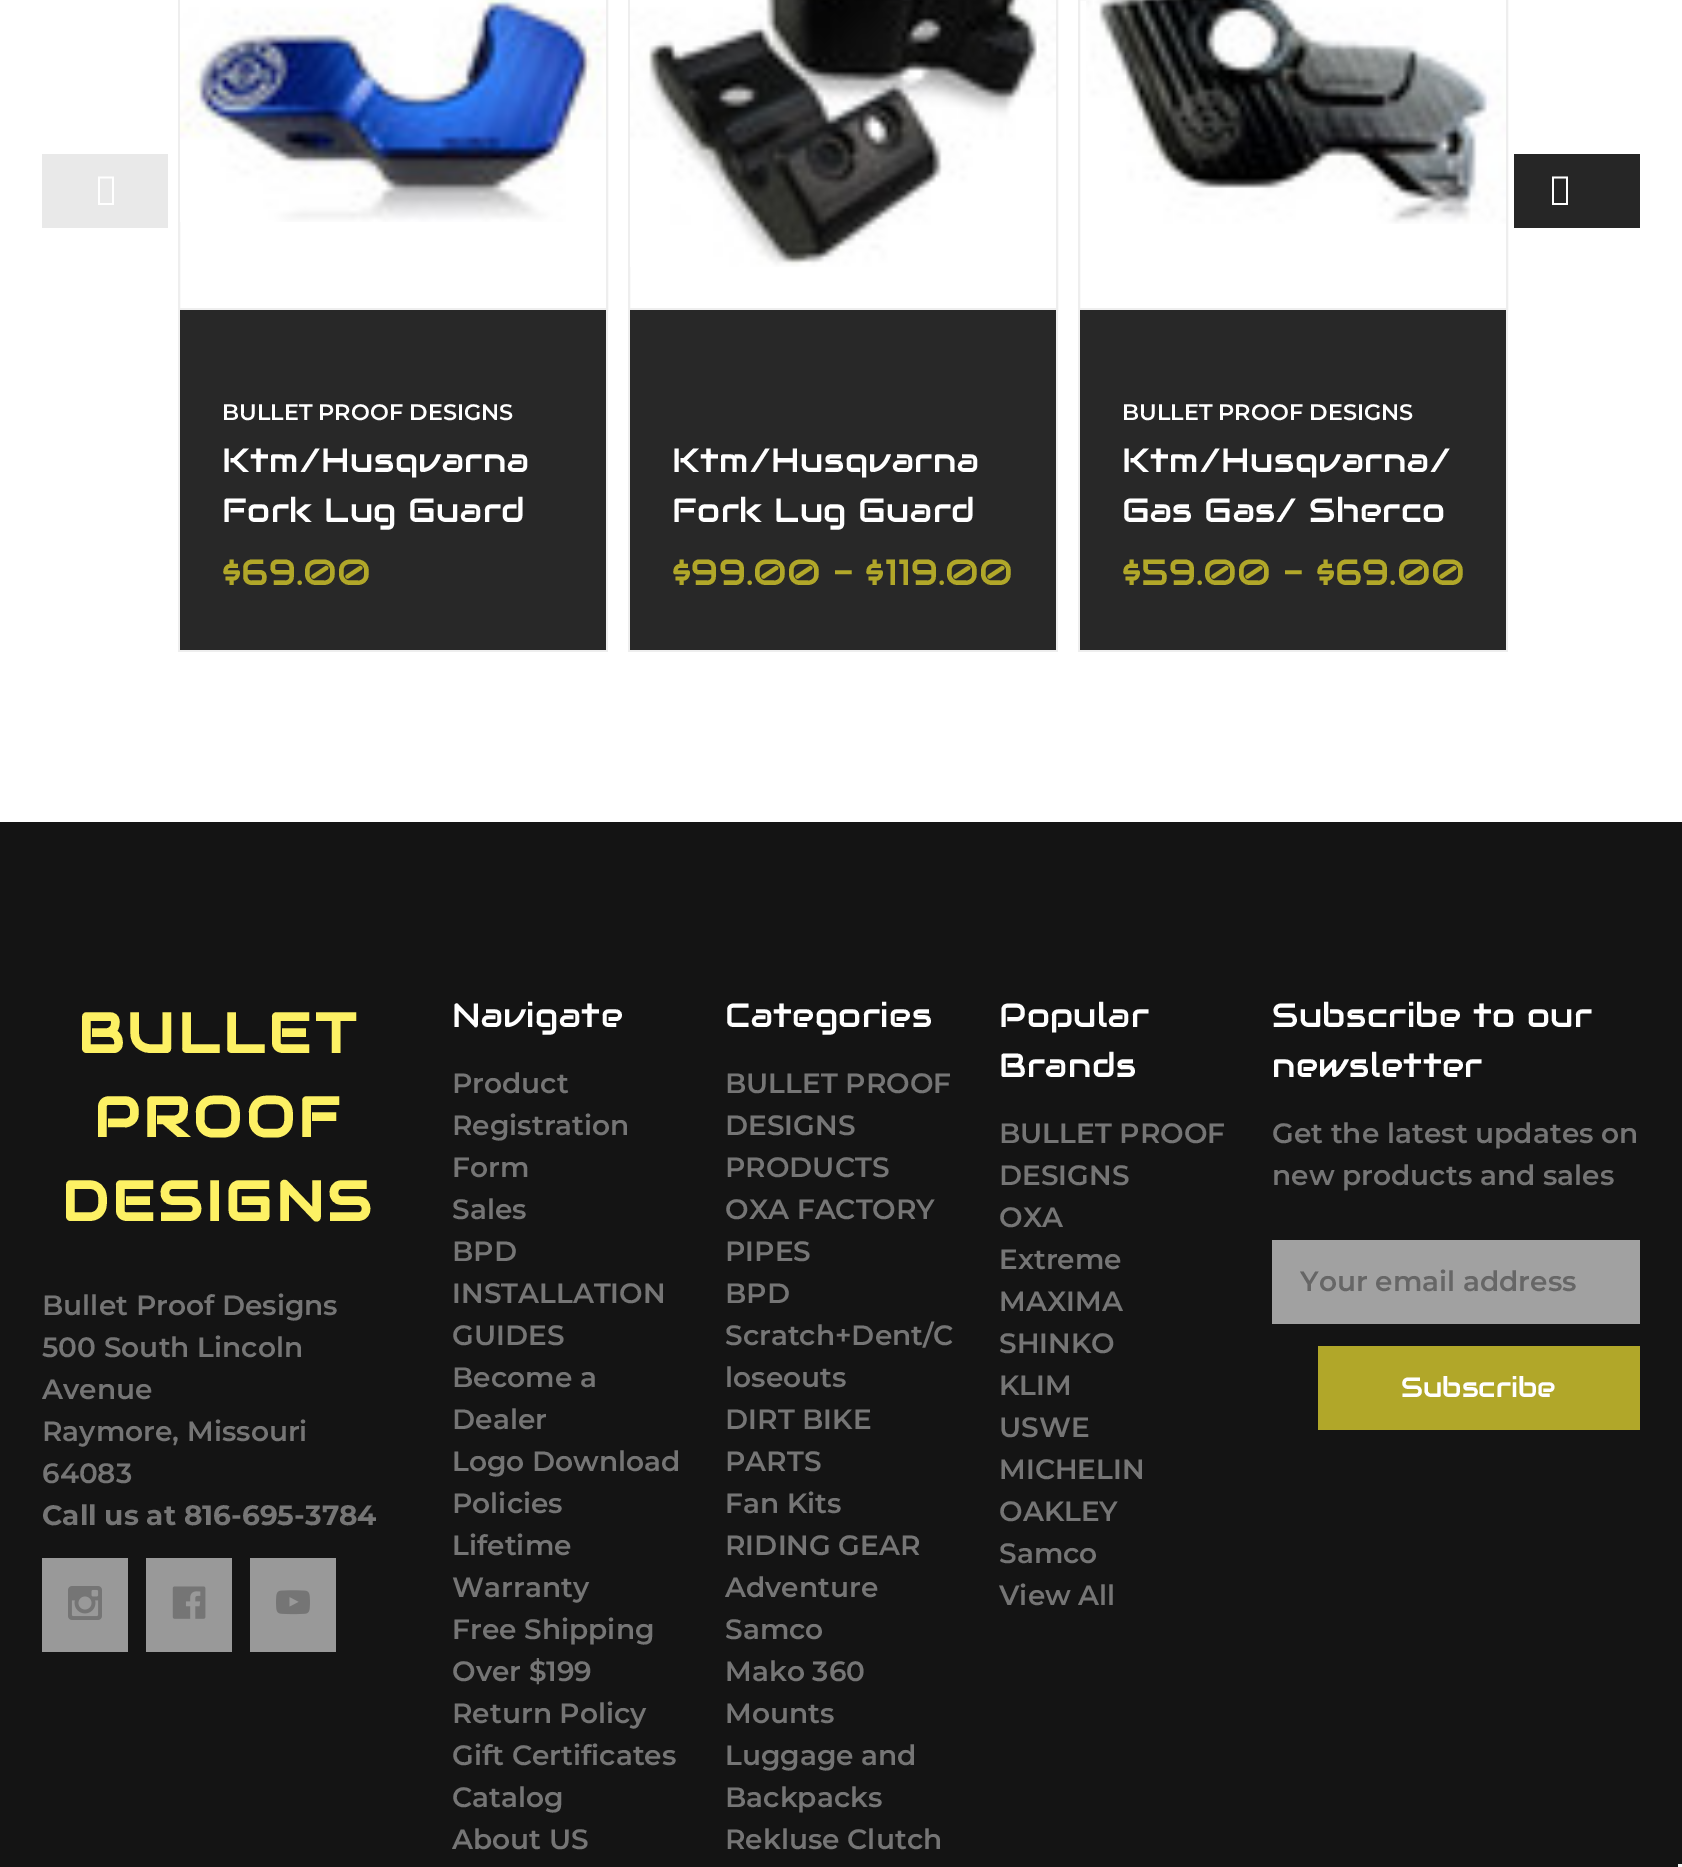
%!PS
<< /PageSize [1682 1867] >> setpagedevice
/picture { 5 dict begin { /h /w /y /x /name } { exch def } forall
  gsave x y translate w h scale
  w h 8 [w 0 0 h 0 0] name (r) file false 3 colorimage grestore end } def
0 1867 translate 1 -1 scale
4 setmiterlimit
1 setgray
0 0 1682 1867 rectfill
0.914 setgray
42 154 126 74 rectfill
1 setgray
newpath 98 205 moveto 98 176.5 lineto 114 176.5 lineto 114 205 lineto closepath 100 203 moveto 112 203 lineto 112 178.5 lineto 100 178.5 lineto closepath fill
0.149 setgray
1514 154 126 74 rectfill
1 setgray
newpath 1552 205 moveto 1552 176.5 lineto 1568 176.5 lineto 1568 205 lineto closepath 1554 203 moveto 1566 203 lineto 1566 178.5 lineto 1554 178.5 lineto closepath fill
0.933 setgray
2 setlinewidth
179 -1 428 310 rectstroke
(img1.rgb) 180 0 426 222 picture
0.157 setgray
180 310 426 340 rectfill
0.933 setgray
606 310 2 342 rectfill
178 650 430 2 rectfill
178 310 2 342 rectfill
/Montserrat-SemiBold [22.4 0 0 -22.4 0 0] selectfont
1 setgray
222 420 moveto (BULLET PROOF DESIGNS) show
/Audiowide-Regular [33.5 0 0 -33.5 0 0] selectfont
222 472 moveto 0.5 0 (Ktm/Husqvarna) ashow
222 522 moveto 0.5 0 (Fork Lug Guard) ashow
/Audiowide-Regular [36.5 0 0 -36.5 0 0] selectfont
0.694 0.655 0.161 setrgbcolor
222 585 moveto ($69.00) show
0.933 setgray
629 -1 428 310 rectstroke
(img2.rgb) 630 0 426 267 picture
0.157 setgray
630 310 426 340 rectfill
0.933 setgray
1056 310 2 342 rectfill
628 650 430 2 rectfill
628 310 2 342 rectfill
/Audiowide-Regular [33.5 0 0 -33.5 0 0] selectfont
1 setgray
672 472 moveto 0.5 0 (Ktm/Husqvarna) ashow
672 522 moveto 0.5 0 (Fork Lug Guard) ashow
/Audiowide-Regular [36.5 0 0 -36.5 0 0] selectfont
0.694 0.655 0.161 setrgbcolor
672 585 moveto ($99.00 - $119.00) show
0.933 setgray
1079 -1 428 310 rectstroke
(img3.rgb) 1086 0 420 224 picture
0.157 setgray
1080 310 426 340 rectfill
0.933 setgray
1506 310 2 342 rectfill
1078 650 430 2 rectfill
1078 310 2 342 rectfill
/Montserrat-SemiBold [22.4 0 0 -22.4 0 0] selectfont
1 setgray
1122 420 moveto (BULLET PROOF DESIGNS) show
/Audiowide-Regular [33.5 0 0 -33.5 0 0] selectfont
1122 472 moveto 0.5 0 (Ktm/Husqvarna/) ashow
1122 522 moveto 0.5 0 (Gas Gas/ Sherco) ashow
/Audiowide-Regular [36.5 0 0 -36.5 0 0] selectfont
0.694 0.655 0.161 setrgbcolor
1122 585 moveto ($59.00 - $69.00) show
0.078 setgray
0 822 1682 1045 rectfill
/Audiowide-Bold [56 0 0 -56 0 0] selectfont
0.992 0.945 0.392 setrgbcolor
78 1053 moveto 4 0 (BULLET) ashow
94 1137 moveto 4 0 (PROOF) ashow
62 1221 moveto 4 0 (DESIGNS) ashow
/Montserrat-SemiBold [28 0 0 -28 0 0] selectfont
0.459 setgray
42 1315 moveto (Bullet Proof Designs) show
42 1357 moveto (500 South Lincoln) show
42 1399 moveto (Avenue) show
42 1441 moveto (Raymore, Missouri) show
42 1483 moveto (64083) show
/Montserrat-Bold [28 0 0 -28 0 0] selectfont
42 1525 moveto (Call us at 816-695-3784) show
0.6 setgray
42 1558 86 94 rectfill
(img4.rgb) 68 1586 34 34 picture
146 1558 86 94 rectfill
(img5.rgb) 172 1586 34 33 picture
250 1558 86 94 rectfill
(img6.rgb) 276 1590 34 25 picture
/Audiowide-Regular [33.5 0 0 -33.5 0 0] selectfont
1 setgray
452 1027 moveto 0.5 0 (Navigate) ashow
/Montserrat-SemiBold [28 0 0 -28 0 0] selectfont
0.459 setgray
452 1093 moveto (Product) show
452 1135 moveto (Registration) show
452 1177 moveto (Form) show
452 1219 moveto (Sales) show
452 1261 moveto (BPD) show
452 1303 moveto (INSTALLATION) show
452 1345 moveto (GUIDES) show
452 1387 moveto (Become a) show
452 1429 moveto (Dealer) show
452 1471 moveto (Logo Download) show
452 1513 moveto (Policies) show
452 1555 moveto (Lifetime) show
452 1597 moveto (Warranty) show
452 1639 moveto (Free Shipping) show
452 1681 moveto (Over $199) show
452 1723 moveto (Return Policy) show
452 1765 moveto (Gift Certificates) show
452 1807 moveto (Catalog) show
452 1849 moveto (About US) show
/Audiowide-Regular [33.5 0 0 -33.5 0 0] selectfont
1 setgray
725 1027 moveto 0.5 0 (Categories) ashow
/Montserrat-SemiBold [28 0 0 -28 0 0] selectfont
0.459 setgray
725 1093 moveto (BULLET PROOF) show
725 1135 moveto (DESIGNS) show
725 1177 moveto (PRODUCTS) show
725 1219 moveto (OXA FACTORY) show
725 1261 moveto (PIPES) show
725 1303 moveto (BPD) show
725 1345 moveto (Scratch+Dent/C) show
725 1387 moveto (loseouts) show
725 1429 moveto (DIRT BIKE) show
725 1471 moveto (PARTS) show
725 1513 moveto (Fan Kits) show
725 1555 moveto (RIDING GEAR) show
725 1597 moveto (Adventure) show
725 1639 moveto (Samco) show
725 1681 moveto (Mako 360) show
725 1723 moveto (Mounts) show
725 1765 moveto (Luggage and) show
725 1807 moveto (Backpacks) show
725 1849 moveto (Rekluse Clutch) show
/Audiowide-Regular [33.5 0 0 -33.5 0 0] selectfont
1 setgray
999 1027 moveto 0.5 0 (Popular) ashow
999 1077 moveto 0.5 0 (Brands) ashow
/Montserrat-SemiBold [28 0 0 -28 0 0] selectfont
0.459 setgray
999 1143 moveto (BULLET PROOF) show
999 1185 moveto (DESIGNS) show
999 1227 moveto (OXA) show
999 1269 moveto (Extreme) show
999 1311 moveto (MAXIMA) show
999 1353 moveto (SHINKO) show
999 1395 moveto (KLIM) show
999 1437 moveto (USWE) show
999 1479 moveto (MICHELIN) show
999 1521 moveto (OAKLEY) show
999 1563 moveto (Samco) show
999 1605 moveto (View All) show
/Audiowide-Regular [33.5 0 0 -33.5 0 0] selectfont
1 setgray
1272 1027 moveto 0.5 0 (Subscribe to our) ashow
1272 1077 moveto 0.5 0 (newsletter) ashow
/Montserrat-SemiBold [28 0 0 -28 0 0] selectfont
0.459 setgray
1272 1143 moveto (Get the latest updates on) show
1272 1185 moveto (new products and sales) show
0.631 setgray
1272 1240 368 84 rectfill
0.4 setgray
1300 1291 moveto (Your email address) show
0.694 0.655 0.161 setrgbcolor
1318 1346 322 84 rectfill
/Audiowide-Regular [28 0 0 -28 0 0] selectfont
1 setgray
1401 1397 moveto (Subscribe) show
0.961 setgray
1678 1864 4 3 rectfill
showpage
